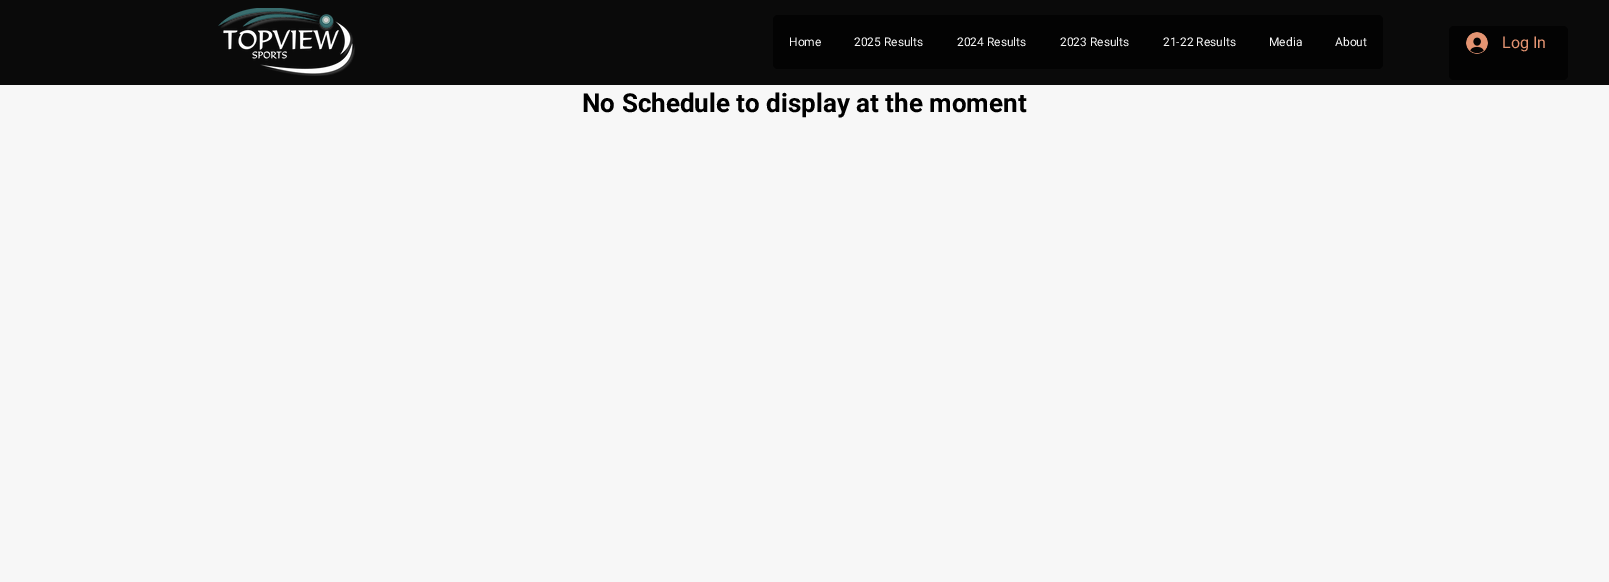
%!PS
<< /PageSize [1609 582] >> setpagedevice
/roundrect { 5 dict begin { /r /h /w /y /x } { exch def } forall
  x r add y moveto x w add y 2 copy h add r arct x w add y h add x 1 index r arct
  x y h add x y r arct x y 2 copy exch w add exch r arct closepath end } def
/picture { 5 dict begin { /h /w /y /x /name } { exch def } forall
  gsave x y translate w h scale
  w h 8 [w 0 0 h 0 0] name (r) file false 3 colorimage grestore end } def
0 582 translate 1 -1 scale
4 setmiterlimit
0.969 setgray
0 0 1609 582 rectfill
0.039 setgray
0 0 1609 85 rectfill
(img1.rgb) 218 8 137 68 picture
0.012 setgray
773 15 610 54 5 roundrect fill
/Roboto-Regular [12 0 0 -12 0 0] selectfont
0.969 setgray
789 46 moveto (Home) show
854 46 moveto (2025 Results) show
957 46 moveto (2024 Results) show
1060 46 moveto (2023 Results) show
1163 46 moveto (21-22 Results) show
1269 46 moveto (Media) show
1335 46 moveto (About) show
0.012 setgray
1449 26 119 54 5 roundrect fill
(img2.rgb) 1466 32 22 22 picture
/Roboto-Regular [16 0 0 -16 0 0] selectfont
0.894 0.58 0.447 setrgbcolor
1502 48 moveto (Log In) show
/Roboto-Bold [26 0 0 -26 0 0] selectfont
0 setgray
582 112 moveto (No Schedule to display at the moment) show
showpage
